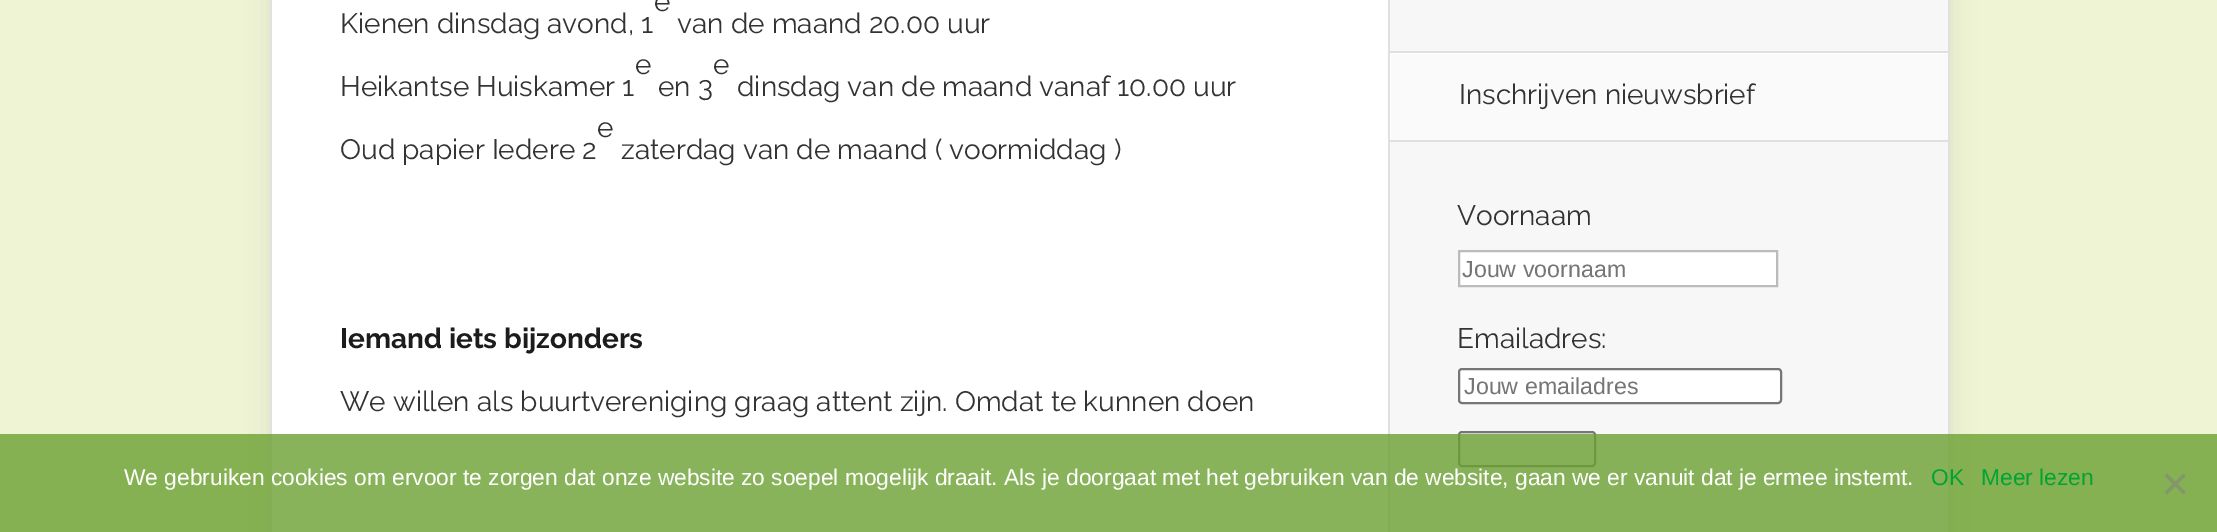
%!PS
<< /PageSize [2217 532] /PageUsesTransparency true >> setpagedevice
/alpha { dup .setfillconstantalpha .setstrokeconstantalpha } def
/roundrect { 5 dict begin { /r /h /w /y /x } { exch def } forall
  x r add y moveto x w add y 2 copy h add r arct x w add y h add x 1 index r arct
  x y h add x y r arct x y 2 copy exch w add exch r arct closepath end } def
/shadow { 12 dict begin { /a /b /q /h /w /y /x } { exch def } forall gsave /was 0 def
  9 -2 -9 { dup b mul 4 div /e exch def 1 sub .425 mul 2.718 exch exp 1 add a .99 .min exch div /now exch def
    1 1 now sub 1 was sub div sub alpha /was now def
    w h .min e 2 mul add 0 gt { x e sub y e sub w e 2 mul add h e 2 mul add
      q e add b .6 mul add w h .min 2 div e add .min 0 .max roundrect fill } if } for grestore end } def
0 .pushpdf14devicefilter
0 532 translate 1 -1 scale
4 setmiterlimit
0.933 0.957 0.831 setrgbcolor
0 0 2217 532 rectfill
0 setgray
270 -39 1680 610 0 13 0.07 shadow
1 setgray
272 0 1116 532 rectfill
0.878 setgray
1948 0 2 532 rectfill
270 0 2 532 rectfill
/Raleway-Regular [28 0 0 -28 0 0] selectfont
0.2 setgray
654 11 moveto (e) show
340 33 moveto (Kienen dinsdag avond, 1) show
677 33 moveto (van de maand 20.00 uur) show
635 74 moveto (e) show
713 74 moveto (e) show
340 96 moveto (Heikantse Huiskamer 1) show
658 96 moveto (en 3) show
737 96 moveto (dinsdag van de maand vanaf 10.00 uur) show
597 137 moveto (e) show
340 159 moveto (Oud papier Iedere 2) show
621 159 moveto (zaterdag van de maand \( voormiddag \)) show
/Raleway-Bold [28 0 0 -28 0 0] selectfont
0.11 setgray
340 348 moveto (Iemand iets bijzonders) show
/Raleway-Regular [28 0 0 -28 0 0] selectfont
0.2 setgray
340 411 moveto (We willen als buurtvereniging graag attent zijn. Omdat te kunnen doen) show
0.969 setgray
1390 0 558 532 rectfill
0.98 setgray
1391 54 557 86 rectfill
gsave
1390 53 558 87 rectclip
1 setgray
newpath 1216 -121 moveto 2121 -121 lineto 2121 313 lineto 1216 313 lineto closepath 1391 54 moveto 1950 54 lineto 1950 142 lineto 1391 142 lineto closepath eofill
grestore
0.878 setgray
1388 0 2 532 rectfill
1388 51 560 2 rectfill
1388 140 560 2 rectfill
0.2 setgray
1459 104 moveto (Inschrijven nieuwsbrief) show
1457 225 moveto (Voornaam) show
1 setgray
newpath 1459 251 moveto 1777 251 lineto 1777 286 lineto 1459 286 lineto closepath gsave fill grestore
0.733 setgray
2 setlinewidth
stroke
/LiberationSans-Regular [23.25 0 0 -23.25 0 0] selectfont
0.459 setgray
1462 277 moveto (Jouw voornaam) show
/Raleway-Regular [28 0 0 -28 0 0] selectfont
0.2 setgray
1457 348 moveto (Emailadres:) show
1 setgray
1459 369 322 34 3 roundrect gsave fill grestore
0.463 setgray
stroke
/LiberationSans-Regular [23.25 0 0 -23.25 0 0] selectfont
0.459 setgray
1464 394 moveto (Jouw emailadres) show
0.937 setgray
1459 432 136 34 3 roundrect gsave fill grestore
0.463 setgray
stroke
0.8 alpha
0.42 0.627 0.192 setrgbcolor
0 434 2217 98 rectfill
/LiberationSans-Regular [22.75 0 0 -22.75 0 0] selectfont
1 alpha
1 setgray
124 485 moveto (We gebruiken cookies om ervoor te zorgen dat onze website zo soepel mogelijk draait. Als je doorgaat met het gebruiken van de website, gaan we er vanuit dat je ermee instemt.) show
0.004 0.639 0.196 setrgbcolor
1931 485 moveto (OK) show
1981 485 moveto (Meer lezen) show
0.514 0.596 0.412 setrgbcolor
newpath 2183.5 473.5 moveto 2186 476 lineto 2167 494.5 lineto 2164.5 492 lineto closepath fill
newpath 2164.5 476 moveto 2167 473.5 lineto 2186 492 lineto 2183.5 494.5 lineto closepath fill
.poppdf14devicefilter showpage
